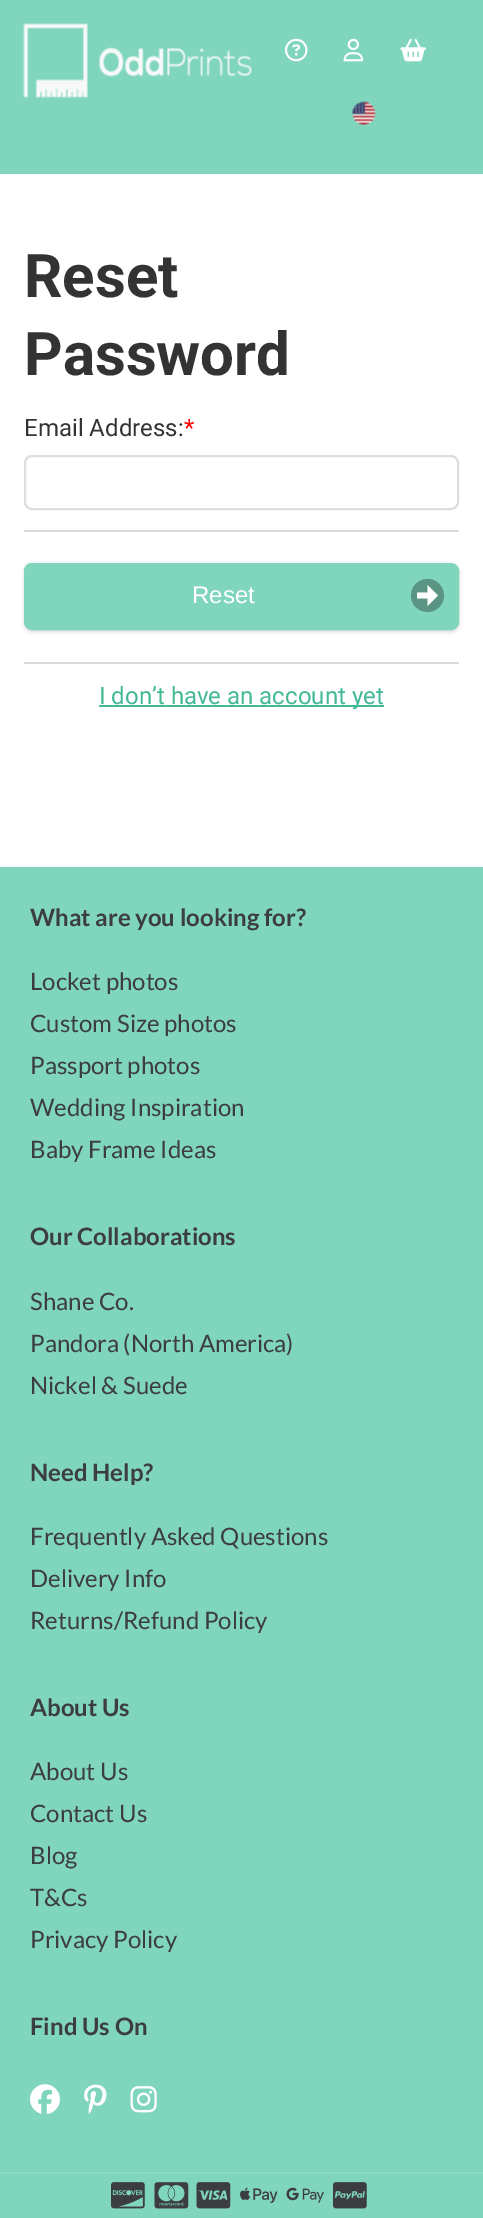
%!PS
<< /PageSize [483 2218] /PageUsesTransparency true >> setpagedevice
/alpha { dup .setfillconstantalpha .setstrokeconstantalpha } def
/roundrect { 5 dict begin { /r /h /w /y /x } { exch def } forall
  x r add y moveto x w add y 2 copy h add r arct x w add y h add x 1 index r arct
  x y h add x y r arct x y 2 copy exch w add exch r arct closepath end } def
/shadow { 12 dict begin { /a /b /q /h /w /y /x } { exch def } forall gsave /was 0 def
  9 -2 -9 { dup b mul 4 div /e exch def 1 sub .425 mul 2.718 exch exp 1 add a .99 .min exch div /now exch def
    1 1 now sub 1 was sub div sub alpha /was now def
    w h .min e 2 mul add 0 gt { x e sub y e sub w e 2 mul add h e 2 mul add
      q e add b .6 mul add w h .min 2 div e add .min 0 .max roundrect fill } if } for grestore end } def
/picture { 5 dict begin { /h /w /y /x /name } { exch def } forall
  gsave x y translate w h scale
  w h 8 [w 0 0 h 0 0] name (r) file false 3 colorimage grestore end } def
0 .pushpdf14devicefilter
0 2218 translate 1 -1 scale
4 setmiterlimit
1 setgray
0 0 483 2218 rectfill
0.502 0.835 0.741 setrgbcolor
0 0 483 174 rectfill
(img1.rgb) 23 23 229 75 picture
(img2.rgb) 285 38 23 24 picture
(img3.rgb) 343 38 21 24 picture
(img4.rgb) 400 38 26 24 picture
(img5.rgb) 352 101 24 24 picture
/Roboto-Bold [60 0 0 -60 0 0] selectfont
0.2 setgray
24 297 moveto (Reset) show
24 375 moveto (Password) show
0.851 setgray
24 530 435 2 rectfill
/Roboto-Regular [24 0 0 -24 0 0] selectfont
0.2 setgray
24 436 moveto (Email Address:) show
1 0 0 setrgbcolor
184 436 moveto (*) show
0.867 setgray
2 setlinewidth
25 456 433 53 7 roundrect stroke
0.851 setgray
24 662 435 2 rectfill
0 setgray
24 564 435 68 8 2 0.15 shadow
0.502 0.835 0.741 setrgbcolor
25 564 433 65 7 roundrect gsave fill grestore
stroke
/LiberationSans-Regular [24 0 0 -24 0 0] selectfont
1 setgray
192 603 moveto (Reset) show
0.353 0.584 0.518 setrgbcolor
newpath 427.5 595.5 16.5 0 360 arc closepath fill
1 setgray
newpath 438 595.5 moveto 427.5 585 lineto 427.5 592.5 lineto 417 592.5 lineto 417 598.5 lineto 427.5 598.5 lineto 427.5 606 lineto closepath fill
0.259 0.722 0.588 setrgbcolor
99 705 285 2 rectfill
/Roboto-Regular [24 0 0 -24 0 0] selectfont
99 704 moveto (I don’t have an account yet) show
0.502 0.835 0.741 setrgbcolor
0 867 483 1351 rectfill
/Lato-Bold [24 0 0 -24 0 0] selectfont
0.235 0.239 0.251 setrgbcolor
30 926 moveto (What are you looking for?) show
/Lato-Regular [24 0 0 -24 0 0] selectfont
30 990 moveto (Locket photos) show
30 1032 moveto (Custom Size photos) show
30 1074 moveto (Passport photos) show
30 1116 moveto (Wedding Inspiration) show
30 1158 moveto (Baby Frame Ideas) show
/Lato-Bold [24 0 0 -24 0 0] selectfont
30 1245 moveto (Our Collaborations) show
/Lato-Regular [24 0 0 -24 0 0] selectfont
30 1310 moveto (Shane Co.) show
30 1352 moveto (Pandora \(North America\)) show
30 1394 moveto (Nickel & Suede) show
/Lato-Bold [24 0 0 -24 0 0] selectfont
30 1481 moveto (Need Help?) show
/Lato-Regular [24 0 0 -24 0 0] selectfont
30 1545 moveto (Frequently Asked Questions) show
30 1587 moveto (Delivery Info) show
30 1629 moveto (Returns/Refund Policy) show
/Lato-Bold [24 0 0 -24 0 0] selectfont
30 1716 moveto (About Us) show
/Lato-Regular [24 0 0 -24 0 0] selectfont
30 1780 moveto (About Us) show
30 1822 moveto (Contact Us) show
30 1864 moveto (Blog) show
30 1906 moveto (T&Cs) show
30 1948 moveto (Privacy Policy) show
/Lato-Bold [24 0 0 -24 0 0] selectfont
30 2035 moveto (Find Us On) show
(img6.rgb) 30 2084 30 30 picture
(img7.rgb) 84 2084 23 30 picture
(img8.rgb) 130 2086 27 27 picture
0.561 0.855 0.773 setrgbcolor
0 2172 483 2 rectfill
(img9.rgb) 111 2182 34 27 picture
(img10.rgb) 154 2182 35 27 picture
(img11.rgb) 196 2182 35 27 picture
(img12.rgb) 240 2187 38 16 picture
(img13.rgb) 286 2187 38 16 picture
(img14.rgb) 333 2182 34 27 picture
.poppdf14devicefilter showpage
